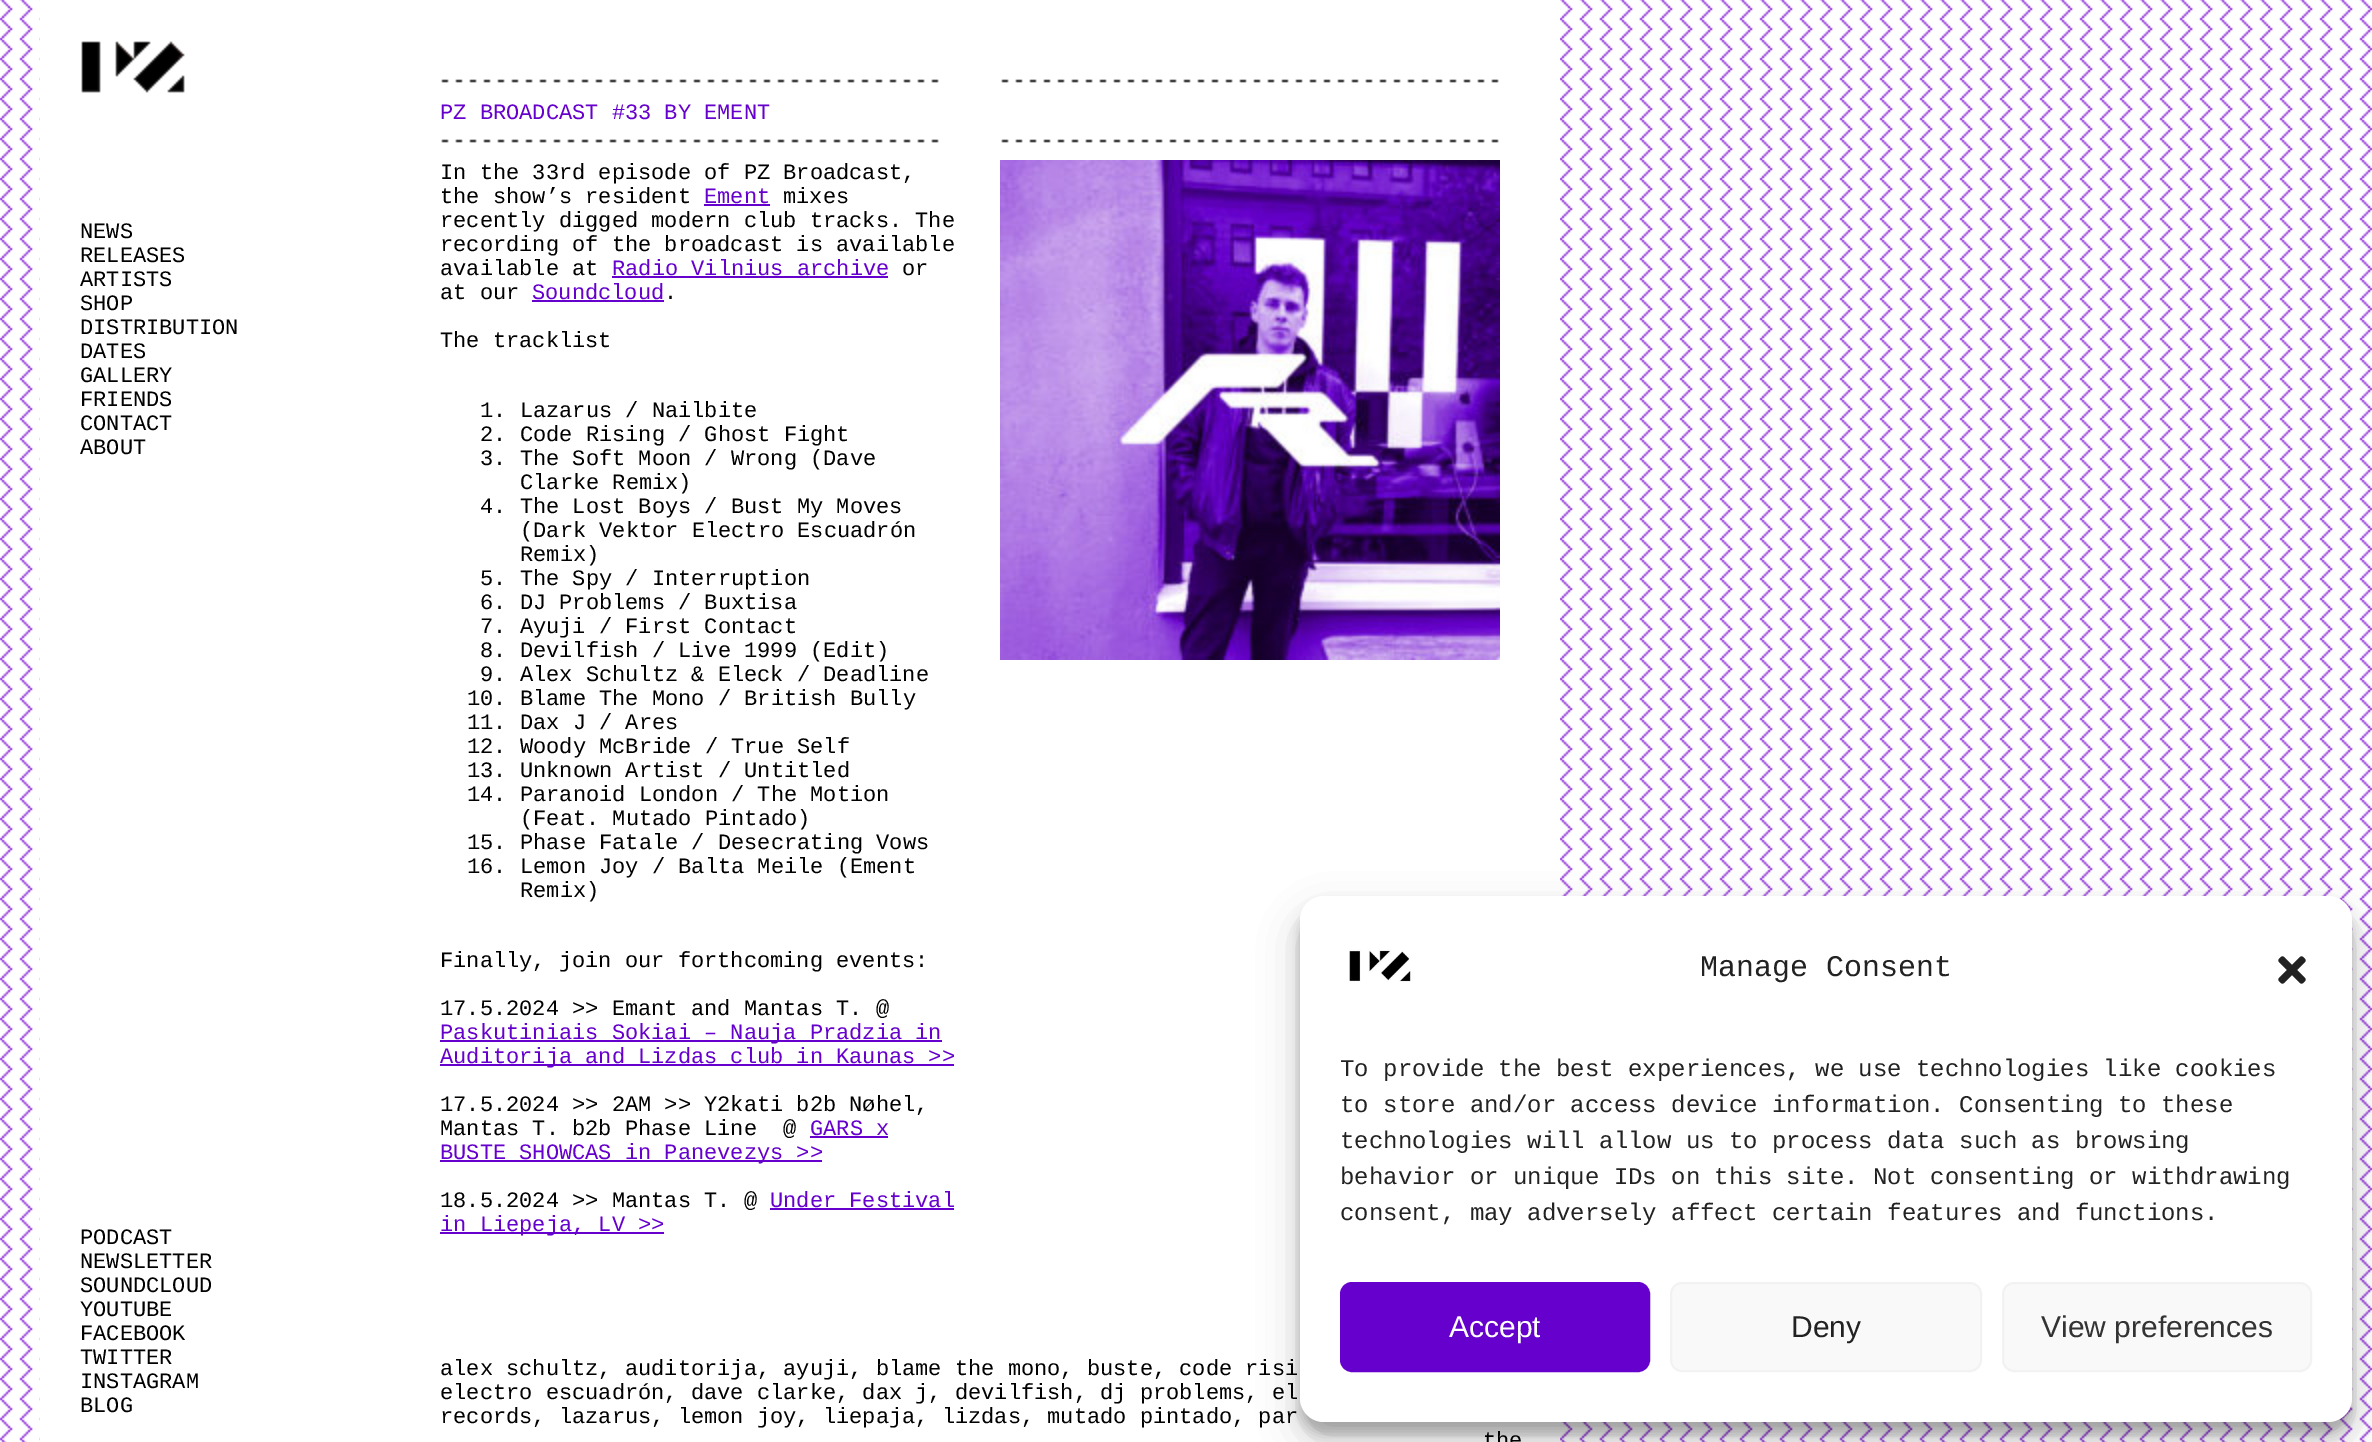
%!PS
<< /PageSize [2372 1442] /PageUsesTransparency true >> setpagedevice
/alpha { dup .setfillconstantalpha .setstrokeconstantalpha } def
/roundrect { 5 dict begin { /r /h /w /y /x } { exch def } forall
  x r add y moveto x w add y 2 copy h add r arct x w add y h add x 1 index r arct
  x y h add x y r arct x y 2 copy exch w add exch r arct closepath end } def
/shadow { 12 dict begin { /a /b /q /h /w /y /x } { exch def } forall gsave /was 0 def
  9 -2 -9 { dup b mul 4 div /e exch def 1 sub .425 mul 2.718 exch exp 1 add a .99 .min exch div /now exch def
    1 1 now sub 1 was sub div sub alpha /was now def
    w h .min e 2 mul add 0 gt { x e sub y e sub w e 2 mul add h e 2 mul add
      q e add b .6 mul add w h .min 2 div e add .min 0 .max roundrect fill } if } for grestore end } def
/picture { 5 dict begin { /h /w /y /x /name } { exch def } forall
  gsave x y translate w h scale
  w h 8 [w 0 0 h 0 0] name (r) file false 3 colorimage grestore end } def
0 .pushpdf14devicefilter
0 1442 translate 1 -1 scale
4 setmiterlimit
1 setgray
0 0 2372 1442 rectfill
(img1.rgb) 0 0 2372 1442 picture
40 0 1520 1442 rectfill
(img2.rgb) 81 41 104 52 picture
/LiberationMono-Regular [22 0 0 -22 0 0] selectfont
0 setgray
80 238 moveto (NEWS) show
80 262 moveto (RELEASES) show
80 286 moveto (ARTISTS) show
80 310 moveto (SHOP) show
80 334 moveto (DISTRIBUTION) show
80 358 moveto (DATES) show
80 382 moveto (GALLERY) show
80 406 moveto (FRIENDS) show
80 430 moveto (CONTACT) show
80 454 moveto (ABOUT) show
(img3.rgb) 441 79 498 4 picture
0.4 0 0.8 setrgbcolor
440 119 moveto (PZ BROADCAST #33 BY EMENT) show
(img3.rgb) 441 139 498 4 picture
(img3.rgb) 1001 79 498 4 picture
(img3.rgb) 1001 139 498 4 picture
0 setgray
440 179 moveto (In the 33rd episode of PZ Broadcast,) show
440 203 moveto (the show’s resident) show
0.4 0 0.8 setrgbcolor
704 203 moveto (Ement) show
704 204 66 2 rectfill
0 setgray
783 203 moveto (mixes) show
440 227 moveto (recently digged modern club tracks. The) show
440 251 moveto (recording of the broadcast is available) show
440 275 moveto (available at) show
0.4 0 0.8 setrgbcolor
612 275 moveto (Radio Vilnius archive) show
612 276 276 2 rectfill
0 setgray
902 275 moveto (or) show
440 299 moveto (at our) show
0.4 0 0.8 setrgbcolor
532 299 moveto (Soundcloud) show
532 300 132 2 rectfill
0 setgray
664 299 moveto (.) show
440 347 moveto (The tracklist) show
480 417 moveto (1. Lazarus / Nailbite) show
480 441 moveto (2. Code Rising / Ghost Fight) show
480 465 moveto (3. The Soft Moon / Wrong \(Dave) show
520 489 moveto (Clarke Remix\)) show
480 513 moveto (4. The Lost Boys / Bust My Moves) show
520 537 moveto (\(Dark Vektor Electro Escuadrón) show
520 561 moveto (Remix\)) show
480 585 moveto (5. The Spy / Interruption) show
480 609 moveto (6. DJ Problems / Buxtisa) show
480 633 moveto (7. Ayuji / First Contact) show
480 657 moveto (8. Devilfish / Live 1999 \(Edit\)) show
480 681 moveto (9. Alex Schultz & Eleck / Deadline) show
467 705 moveto (10. Blame The Mono / British Bully) show
467 729 moveto (11. Dax J / Ares) show
467 753 moveto (12. Woody McBride / True Self) show
467 777 moveto (13. Unknown Artist / Untitled) show
467 801 moveto (14. Paranoid London / The Motion) show
520 825 moveto (\(Feat. Mutado Pintado\)) show
467 849 moveto (15. Phase Fatale / Desecrating Vows) show
467 873 moveto (16. Lemon Joy / Balta Meile \(Ement) show
520 897 moveto (Remix\)) show
440 967 moveto (Finally, join our forthcoming events:) show
440 1015 moveto (17.5.2024 >> Emant and Mantas T. @) show
0.4 0 0.8 setrgbcolor
440 1040 502 2 rectfill
440 1039 moveto (Paskutiniais Sokiai – Nauja Pradzia in) show
440 1064 514 2 rectfill
440 1063 moveto (Auditorija and Lizdas club in Kaunas >>) show
0 setgray
440 1111 moveto (17.5.2024 >> 2AM >> Y2kati b2b Nøhel,) show
440 1135 moveto (Mantas T. b2b Phase Line  @) show
0.4 0 0.8 setrgbcolor
810 1135 moveto (GARS x) show
810 1136 78 2 rectfill
440 1160 382 2 rectfill
440 1159 moveto (BUSTE SHOWCAS in Panevezys >>) show
0 setgray
440 1207 moveto (18.5.2024 >> Mantas T. @) show
0.4 0 0.8 setrgbcolor
770 1207 moveto (Under Festival) show
770 1208 184 2 rectfill
440 1232 224 2 rectfill
440 1231 moveto (in Liepeja, LV >>) show
(img4.rgb) 1000 160 500 500 picture
0 setgray
440 1375 moveto (alex schultz, auditorija, ayuji, blame the mono, buste, code risi) show
440 1399 moveto (electro escuadrón, dave clarke, dax j, devilfish, dj problems, el) show
440 1423 moveto (records, lazarus, lemon joy, liepaja, lizdas, mutado pintado, par) show
1483 1447 moveto (the) show
80 1244 moveto (PODCAST) show
80 1268 moveto (NEWSLETTER) show
80 1292 moveto (SOUNDCLOUD) show
80 1316 moveto (YOUTUBE) show
80 1340 moveto (FACEBOOK) show
80 1364 moveto (TWITTER) show
80 1388 moveto (INSTAGRAM) show
80 1412 moveto (BLOG) show
1300 908 1052 526 24 6 0.23 shadow
1300 916 1052 526 24 20 0.19 shadow
1 setgray
1300 896 1052 526 24 roundrect fill
(img5.rgb) 1349 949 62 33 picture
/LiberationMono-Regular [30 0 0 -30 0 0] selectfont
0.133 setgray
1700 976 moveto (Manage Consent) show
(img6.rgb) 2278 956 28 28 picture
/LiberationMono-Regular [24 0 0 -24 0 0] selectfont
1340 1076 moveto (To provide the best experiences, we use technologies like cookies) show
1340 1112 moveto (to store and/or access device information. Consenting to these) show
1340 1148 moveto (technologies will allow us to process data such as browsing) show
1340 1184 moveto (behavior or unique IDs on this site. Not consenting or withdrawing) show
1340 1220 moveto (consent, may adversely affect certain features and functions.) show
0.4 0 0.8 setrgbcolor
1341 1283 308 88 11 roundrect gsave fill grestore
2 setlinewidth
stroke
/LiberationSans-Regular [30 0 0 -30 0 0] selectfont
1 setgray
1449 1337 moveto (Accept) show
0.976 setgray
1671 1283 310 88 11 roundrect gsave fill grestore
0.949 setgray
stroke
0.133 setgray
1791 1337 moveto (Deny) show
0.976 setgray
2003 1283 308 88 11 roundrect gsave fill grestore
0.949 setgray
stroke
0.2 setgray
2041 1337 moveto (View preferences) show
.poppdf14devicefilter showpage
